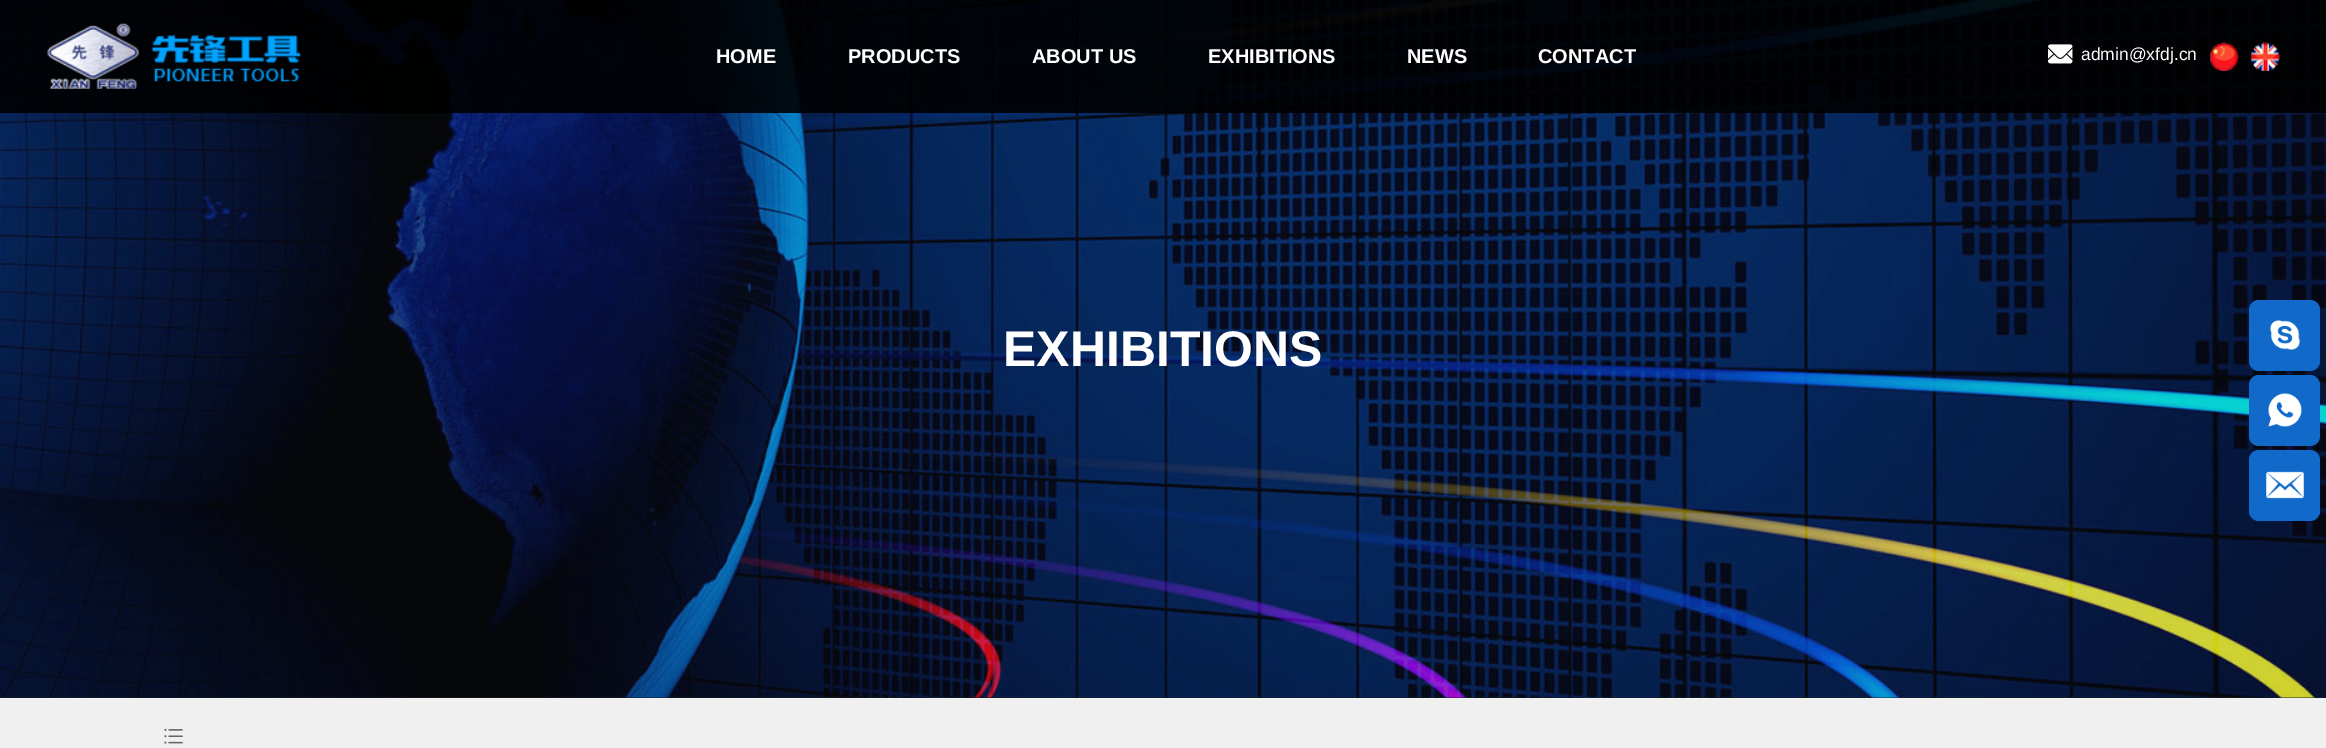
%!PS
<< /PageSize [2326 748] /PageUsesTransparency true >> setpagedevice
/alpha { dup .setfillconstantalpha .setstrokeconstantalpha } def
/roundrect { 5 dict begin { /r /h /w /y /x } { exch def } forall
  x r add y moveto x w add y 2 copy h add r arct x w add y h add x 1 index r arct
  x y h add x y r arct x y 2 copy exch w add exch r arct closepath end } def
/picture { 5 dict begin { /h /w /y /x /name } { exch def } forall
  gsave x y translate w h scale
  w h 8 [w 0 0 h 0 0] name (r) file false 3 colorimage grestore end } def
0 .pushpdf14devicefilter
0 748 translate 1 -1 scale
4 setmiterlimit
0.941 setgray
0 0 2326 748 rectfill
0.106 0.141 0.169 setrgbcolor
0 0 2326 698 rectfill
(img5.rgb) 0 0 2326 698 picture
0.9 alpha
0 setgray
0 0 2326 113 rectfill
1 alpha
(img1.rgb) 47 23 254 66 picture
/LiberationSans-Bold [20 0 0 -20 0 0] selectfont
1 setgray
716 63 moveto (HOME) show
848 63 moveto (PRODUCTS) show
1032 63 moveto (ABOUT US) show
1208 63 moveto (EXHIBITIONS) show
1407 63 moveto (NEWS) show
1538 63 moveto (CONTACT) show
(img2.rgb) 2048 44 25 20 picture
/LiberationSans-Regular [17.5 0 0 -17.5 0 0] selectfont
2081 60 moveto (admin@xfdj.cn) show
(img3.rgb) 2210 42 29 29 picture
(img4.rgb) 2251 42 29 29 picture
/LiberationSans-Bold [50 0 0 -50 0 0] selectfont
1003 366 moveto (EXHIBITIONS) show
0.067 0.416 0.792 setrgbcolor
2249 300 71 71 10 roundrect fill
(img6.rgb) 2270 320 30 30 picture
2249 375 71 71 10 roundrect fill
(img7.rgb) 2268 393 34 34 picture
2249 450 71 71 10 roundrect fill
(img8.rgb) 2266 471 38 28 picture
(img9.rgb) 164 728 19 16 picture
.poppdf14devicefilter showpage
